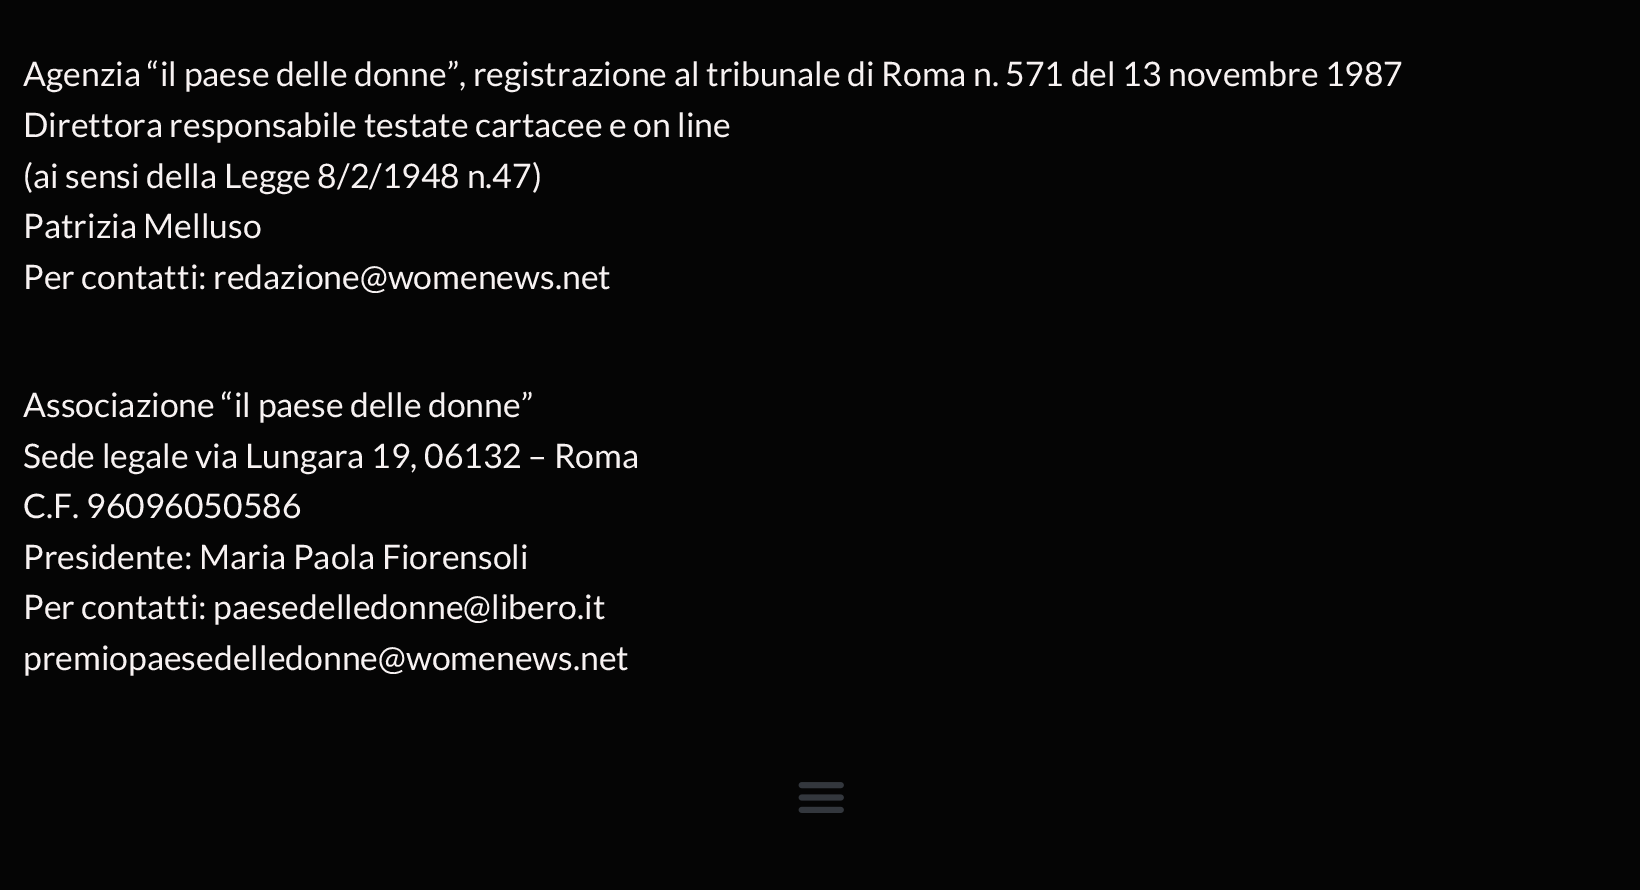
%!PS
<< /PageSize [1640 890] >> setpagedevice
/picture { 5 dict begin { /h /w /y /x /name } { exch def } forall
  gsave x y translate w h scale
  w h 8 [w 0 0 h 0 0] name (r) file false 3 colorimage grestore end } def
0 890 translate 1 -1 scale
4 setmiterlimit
0.02 setgray
0 0 1640 890 rectfill
/Lato-Regular [33.75 0 0 -33.75 0 0] selectfont
0.969 0.949 0.949 setrgbcolor
23 86 moveto (Agenzia “il paese delle donne”, registrazione al tribunale di Roma n. 571 del 13 novembre 1987) show
23 137 moveto (Direttora responsabile testate cartacee e on line) show
23 188 moveto (\(ai sensi della Legge 8/2/1948 n.47\)) show
23 238 moveto (Patrizia Melluso) show
23 289 moveto (Per contatti: redazione@womenews.net) show
23 417 moveto (Associazione “il paese delle donne”) show
23 468 moveto (Sede legale via Lungara 19, 06132 – Roma) show
23 518 moveto (C.F. 96096050586) show
23 569 moveto (Presidente: Maria Paola Fiorensoli) show
23 619 moveto (Per contatti: paesedelledonne@libero.it) show
23 670 moveto (premiopaesedelledonne@womenews.net) show
(img1.rgb) 798 782 46 31 picture
showpage
